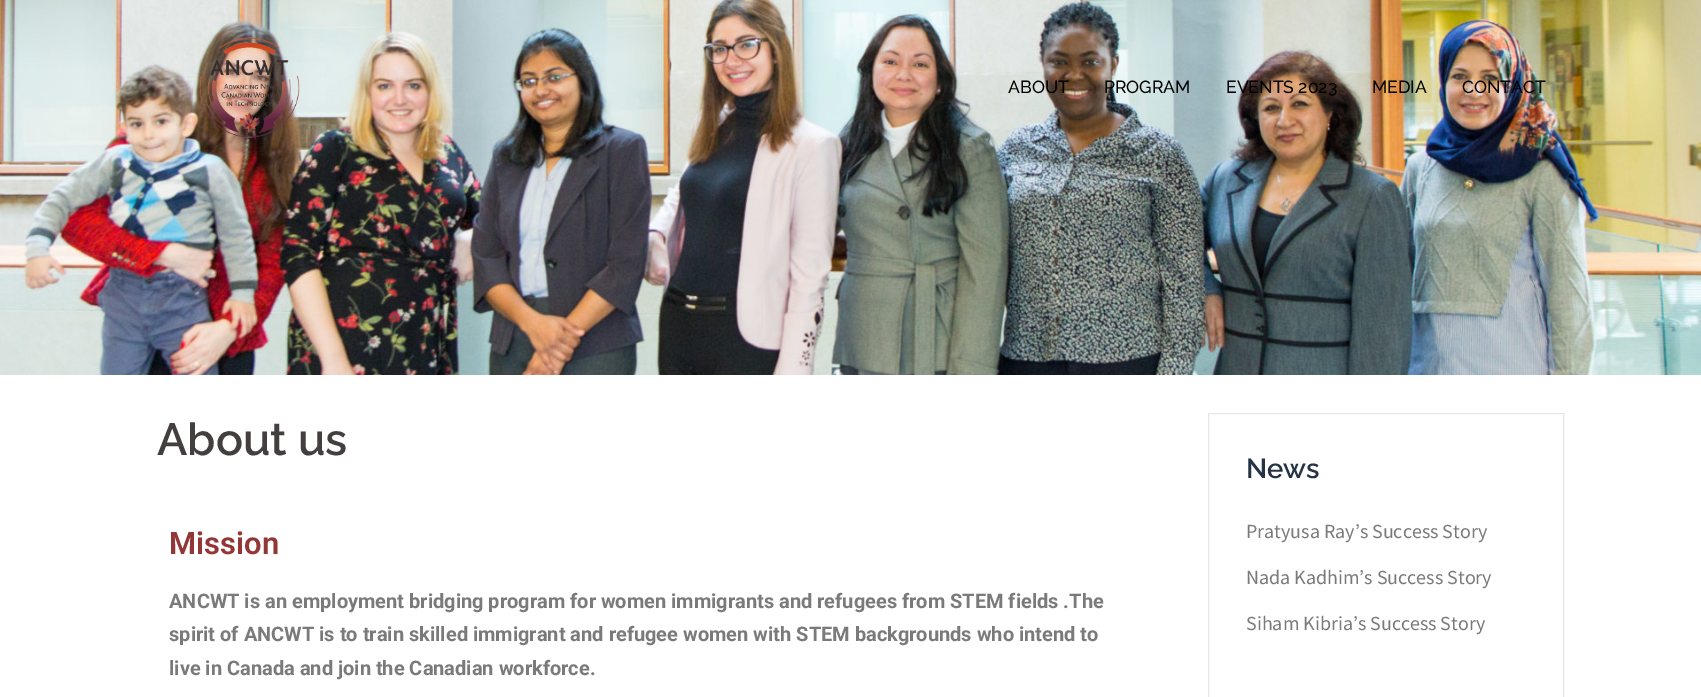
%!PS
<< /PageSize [1701 697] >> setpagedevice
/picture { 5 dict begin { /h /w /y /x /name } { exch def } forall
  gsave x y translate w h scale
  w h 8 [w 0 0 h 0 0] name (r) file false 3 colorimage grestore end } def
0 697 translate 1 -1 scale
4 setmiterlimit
1 setgray
0 0 1701 697 rectfill
(img1.rgb) 0 0 1701 375 picture
(img2.rgb) 199 37 101 101 picture
/Raleway-Medium [17.5 0 0 -17.5 0 0] selectfont
0 setgray
1008 93 moveto (ABOUT) show
1104 93 moveto (PROGRAM) show
1226 93 moveto (EVENTS 2023) show
1372 93 moveto (MEDIA) show
1462 93 moveto (CONTACT) show
/Raleway-SemiBold [45 0 0 -45 0 0] selectfont
0.267 0.247 0.247 setrgbcolor
157 455 moveto (About us) show
/Roboto-SemiBold [31 0 0 -31 0 0] selectfont
0.573 0.212 0.212 setrgbcolor
169 554 moveto (Mission) show
/Roboto-Bold [20 0 0 -20 0 0] selectfont
0.478 setgray
169 608 moveto (ANCWT is an employment bridging program for women immigrants and refugees from STEM fields .The) show
169 641 moveto (spirit of ANCWT is to train skilled immigrant and refugee women with STEM backgrounds who intend to) show
169 675 moveto (live in Canada and join the Canadian workforce.) show
0.902 setgray
1208.5 413.5 355 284 rectstroke
/Raleway-SemiBold [27.5 0 0 -27.5 0 0] selectfont
0.149 0.196 0.275 setrgbcolor
1246 478 moveto (News) show
/SourceSansPro-Regular [20 0 0 -20 0 0] selectfont
0.478 setgray
1246 538 moveto (Pratyusa Ray’s Success Story) show
1246 584 moveto (Nada Kadhim’s Success Story) show
1246 630 moveto (Siham Kibria’s Success Story) show
showpage
